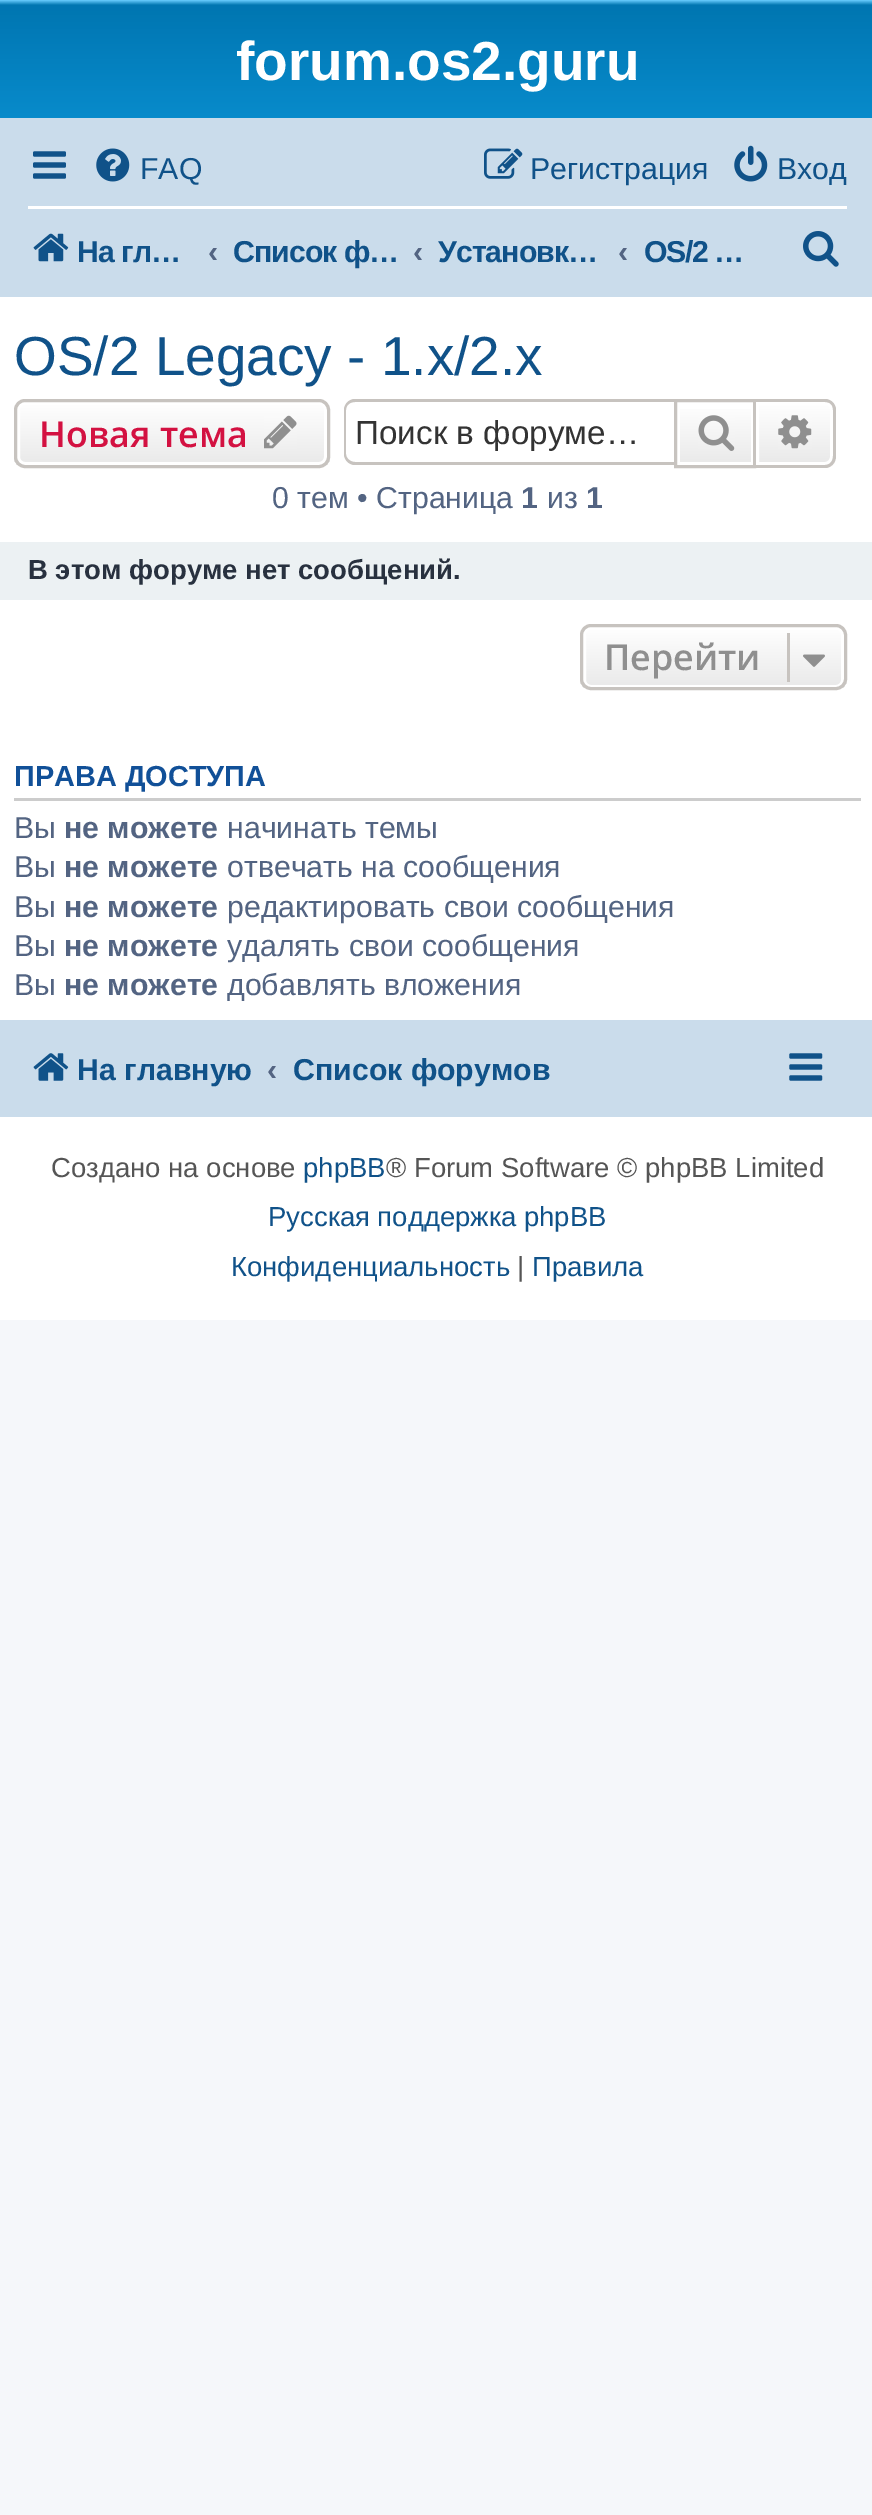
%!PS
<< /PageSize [872 2515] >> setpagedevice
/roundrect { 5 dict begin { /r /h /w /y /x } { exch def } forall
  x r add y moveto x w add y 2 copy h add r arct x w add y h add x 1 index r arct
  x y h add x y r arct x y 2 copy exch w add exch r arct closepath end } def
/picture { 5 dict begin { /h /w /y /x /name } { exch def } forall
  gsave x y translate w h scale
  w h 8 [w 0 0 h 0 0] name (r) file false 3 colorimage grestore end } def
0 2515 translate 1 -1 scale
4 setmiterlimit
0.961 0.969 0.98 setrgbcolor
0 0 872 2515 rectfill
1 setgray
0 297 872 1023 rectfill
gsave newpath 0 0 moveto 872 0 lineto 872 118 lineto 0 118 lineto closepath clip newpath
<< /ShadingType 2 /ColorSpace /DeviceRGB /Coords [437 0 437 253] /Extend [true true] /Function << /FunctionType 3 /Domain [0 1] /Functions [<< /FunctionType 2 /Domain [0 1] /C0 [0.416 0.808 1] /C1 [0 0.463 0.694] /N 1 >> << /FunctionType 2 /Domain [0 1] /C0 [0 0.463 0.694] /C1 [0.071 0.639 0.922] /N 1 >>] /Bounds [0.02] /Encode [0 1 0 1] >> >> shfill grestore
/LiberationSans-Bold [55 0 0 -55 0 0] selectfont
236 80 moveto (forum.os2.guru) show
0.792 0.863 0.922 setrgbcolor
0 118 872 179 rectfill
(img1.rgb) 33 151 33 28 picture
(img2.rgb) 96 148 34 34 picture
/LiberationSans-Regular [30.25 0 0 -30.25 0 0] selectfont
0.063 0.322 0.537 setrgbcolor
140 179 moveto (FAQ) show
(img3.rgb) 484 148 39 31 picture
530 179 moveto (Регистрация) show
(img4.rgb) 734 145 34 37 picture
777 179 moveto (Вход) show
1 setgray
28 206 819 3 rectfill
(img5.rgb) 33 233 36 29 picture
/LiberationSans-Bold [30.25 0 0 -30.25 0 0] selectfont
0.063 0.322 0.537 setrgbcolor
77 262 moveto -1 0 (На гл…) ashow
0.325 0.392 0.51 setrgbcolor
208 262 moveto (‹) show
0.063 0.322 0.537 setrgbcolor
233 262 moveto -1 0 (Список ф…) ashow
0.325 0.392 0.51 setrgbcolor
413 262 moveto (‹) show
0.063 0.322 0.537 setrgbcolor
438 262 moveto -1 0 (Установк…) ashow
0.325 0.392 0.51 setrgbcolor
618 262 moveto (‹) show
0.063 0.322 0.537 setrgbcolor
644 262 moveto -1.5 0 (OS/2 …) ashow
(img6.rgb) 803 231 36 36 picture
/LiberationSans-Regular [55 0 0 -55 0 0] selectfont
14 375 moveto (OS/2 Legacy - 1.x/2.x) show
gsave
14 399 316 69 11 roundrect clip newpath
gsave newpath 14 402 moveto 330 402 lineto 330 465 lineto 14 465 lineto closepath clip newpath
<< /ShadingType 2 /ColorSpace /DeviceRGB /Coords [172 402 172 465] /Extend [true true] /Function << /FunctionType 2 /Domain [0 1] /C0 [1 1 1] /C1 [0.914 0.914 0.914] /N 1 >> >> shfill grestore
grestore
1 setgray
3 setlinewidth
18.5 403.5 307 60 6.5 roundrect stroke
0.78 0.765 0.749 setrgbcolor
15.5 400.5 313 66 9.5 roundrect stroke
/OpenSans-SemiBold [35.75 0 0 -35.75 0 0] selectfont
0.827 0.067 0.255 setrgbcolor
39 447 moveto (Новая тема) show
(img7.rgb) 264 415 33 34 picture
0.78 0.765 0.749 setrgbcolor
newpath 355 399 moveto 674 399 lineto 674 465 lineto 355 465 lineto 349 465 344 460 344 454 curveto 344 410 lineto 344 404 349 399 355 399 curveto closepath 355 402 moveto 674 402 lineto 674 462 lineto 355 462 lineto 350 462 346 458 346 454 curveto 346 410 lineto 346 405 350 402 355 402 curveto closepath eofill
/LiberationSans-Regular [33.25 0 0 -33.25 0 0] selectfont
0.2 setgray
355 444 moveto (Поиск в форуме…) show
gsave newpath 680 409 moveto 751 409 lineto 751 462 lineto 680 462 lineto closepath clip newpath
<< /ShadingType 2 /ColorSpace /DeviceRGB /Coords [715 402 715 465] /Extend [true true] /Function << /FunctionType 2 /Domain [0 1] /C0 [1 1 1] /C1 [0.914 0.914 0.914] /N 1 >> >> shfill grestore
0.78 0.765 0.749 setrgbcolor
675.5 400.5 79 66 rectstroke
(img8.rgb) 698 415 37 36 picture
gsave newpath 757.5 403.5 moveto 825 403.5 lineto 828.5 403.5 831.5 406.5 831.5 410 curveto 831.5 457 lineto 831.5 460.5 828.5 463.5 825 463.5 curveto 757.5 463.5 lineto closepath clip newpath
<< /ShadingType 2 /ColorSpace /DeviceRGB /Coords [795 402 795 465] /Extend [true true] /Function << /FunctionType 2 /Domain [0 1] /C0 [1 1 1] /C1 [0.914 0.914 0.914] /N 1 >> >> shfill grestore
1 setgray
newpath 757.5 403.5 moveto 825 403.5 lineto 828.5 403.5 831.5 406.5 831.5 410 curveto 831.5 457 lineto 831.5 460.5 828.5 463.5 825 463.5 curveto 757.5 463.5 lineto closepath stroke
0.78 0.765 0.749 setrgbcolor
newpath 756 399 moveto 825 399 lineto 831 399 836 404 836 410 curveto 836 456 lineto 836 463 831 468 825 468 curveto 756 468 lineto closepath 756 402 moveto 825 402 lineto 830 402 833 405 833 410 curveto 833 456 lineto 833 461 830 465 825 465 curveto 756 465 lineto closepath eofill
(img9.rgb) 778 415 34 34 picture
/LiberationSans-Regular [30.25 0 0 -30.25 0 0] selectfont
0.325 0.392 0.51 setrgbcolor
272 508 moveto (0 тем • Страница) show
/LiberationSans-Bold [30.25 0 0 -30.25 0 0] selectfont
521 508 moveto (1) show
/LiberationSans-Regular [30.25 0 0 -30.25 0 0] selectfont
547 508 moveto (из) show
/LiberationSans-Bold [30.25 0 0 -30.25 0 0] selectfont
586 508 moveto (1) show
0.925 0.945 0.953 setrgbcolor
0 542 872 58 rectfill
/LiberationSans-Bold [27.5 0 0 -27.5 0 0] selectfont
0.157 0.192 0.247 setrgbcolor
28 579 moveto (В этом форуме нет сообщений.) show
gsave
580 624 267 66 11 roundrect clip newpath
gsave newpath 580 627 moveto 847 627 lineto 847 688 lineto 580 688 lineto closepath clip newpath
<< /ShadingType 2 /ColorSpace /DeviceRGB /Coords [714 627 714 688] /Extend [true true] /Function << /FunctionType 2 /Domain [0 1] /C0 [1 1 1] /C1 [0.914 0.914 0.914] /N 1 >> >> shfill grestore
grestore
1 setgray
584.5 628.5 258 58 6.5 roundrect stroke
0.78 0.765 0.749 setrgbcolor
581.5 625.5 264 63 9.5 roundrect stroke
/OpenSans-SemiBold [35.75 0 0 -35.75 0 0] selectfont
0.561 setgray
604 670 moveto (Перейти) show
0.78 0.765 0.749 setrgbcolor
787 633 3 49 rectfill
(img10.rgb) 803 654 22 13 picture
0.8 setgray
14 798 847 3 rectfill
/LiberationSans-Bold [28.9 0 0 -28.9 0 0] selectfont
0.067 0.314 0.596 setrgbcolor
14 786 moveto (ПРАВА ДОСТУПА) show
/LiberationSans-Regular [30.25 0 0 -30.25 0 0] selectfont
0.325 0.392 0.51 setrgbcolor
14 838 moveto (Вы) show
/LiberationSans-Bold [30.25 0 0 -30.25 0 0] selectfont
64 838 moveto (не можете) show
/LiberationSans-Regular [30.25 0 0 -30.25 0 0] selectfont
227 838 moveto (начинать темы) show
14 877 moveto (Вы) show
/LiberationSans-Bold [30.25 0 0 -30.25 0 0] selectfont
64 877 moveto (не можете) show
/LiberationSans-Regular [30.25 0 0 -30.25 0 0] selectfont
227 877 moveto (отвечать на сообщения) show
14 917 moveto (Вы) show
/LiberationSans-Bold [30.25 0 0 -30.25 0 0] selectfont
64 917 moveto (не можете) show
/LiberationSans-Regular [30.25 0 0 -30.25 0 0] selectfont
227 917 moveto (редактировать свои сообщения) show
14 956 moveto (Вы) show
/LiberationSans-Bold [30.25 0 0 -30.25 0 0] selectfont
64 956 moveto (не можете) show
/LiberationSans-Regular [30.25 0 0 -30.25 0 0] selectfont
227 956 moveto (удалять свои сообщения) show
14 995 moveto (Вы) show
/LiberationSans-Bold [30.25 0 0 -30.25 0 0] selectfont
64 995 moveto (не можете) show
/LiberationSans-Regular [30.25 0 0 -30.25 0 0] selectfont
227 995 moveto (добавлять вложения) show
0.792 0.863 0.922 setrgbcolor
0 1020 872 97 rectfill
(img11.rgb) 33 1053 36 28 picture
/LiberationSans-Bold [30.25 0 0 -30.25 0 0] selectfont
0.063 0.322 0.537 setrgbcolor
77 1080 moveto (На главную) show
0.325 0.392 0.51 setrgbcolor
267 1080 moveto (‹) show
0.063 0.322 0.537 setrgbcolor
293 1080 moveto (Список форумов) show
(img12.rgb) 789 1053 34 28 picture
/LiberationSans-Regular [27.5 0 0 -27.5 0 0] selectfont
0.333 setgray
51 1177 moveto (Создано на основе) show
0.063 0.322 0.537 setrgbcolor
303 1177 moveto (phpBB) show
0.333 setgray
386 1177 moveto (® Forum Software © phpBB Limited) show
0.063 0.322 0.537 setrgbcolor
268 1226 moveto (Русская поддержка phpBB) show
231 1276 moveto (Конфиденциальность) show
0.333 setgray
517 1276 moveto (|) show
0.063 0.322 0.537 setrgbcolor
532 1276 moveto (Правила) show
showpage
